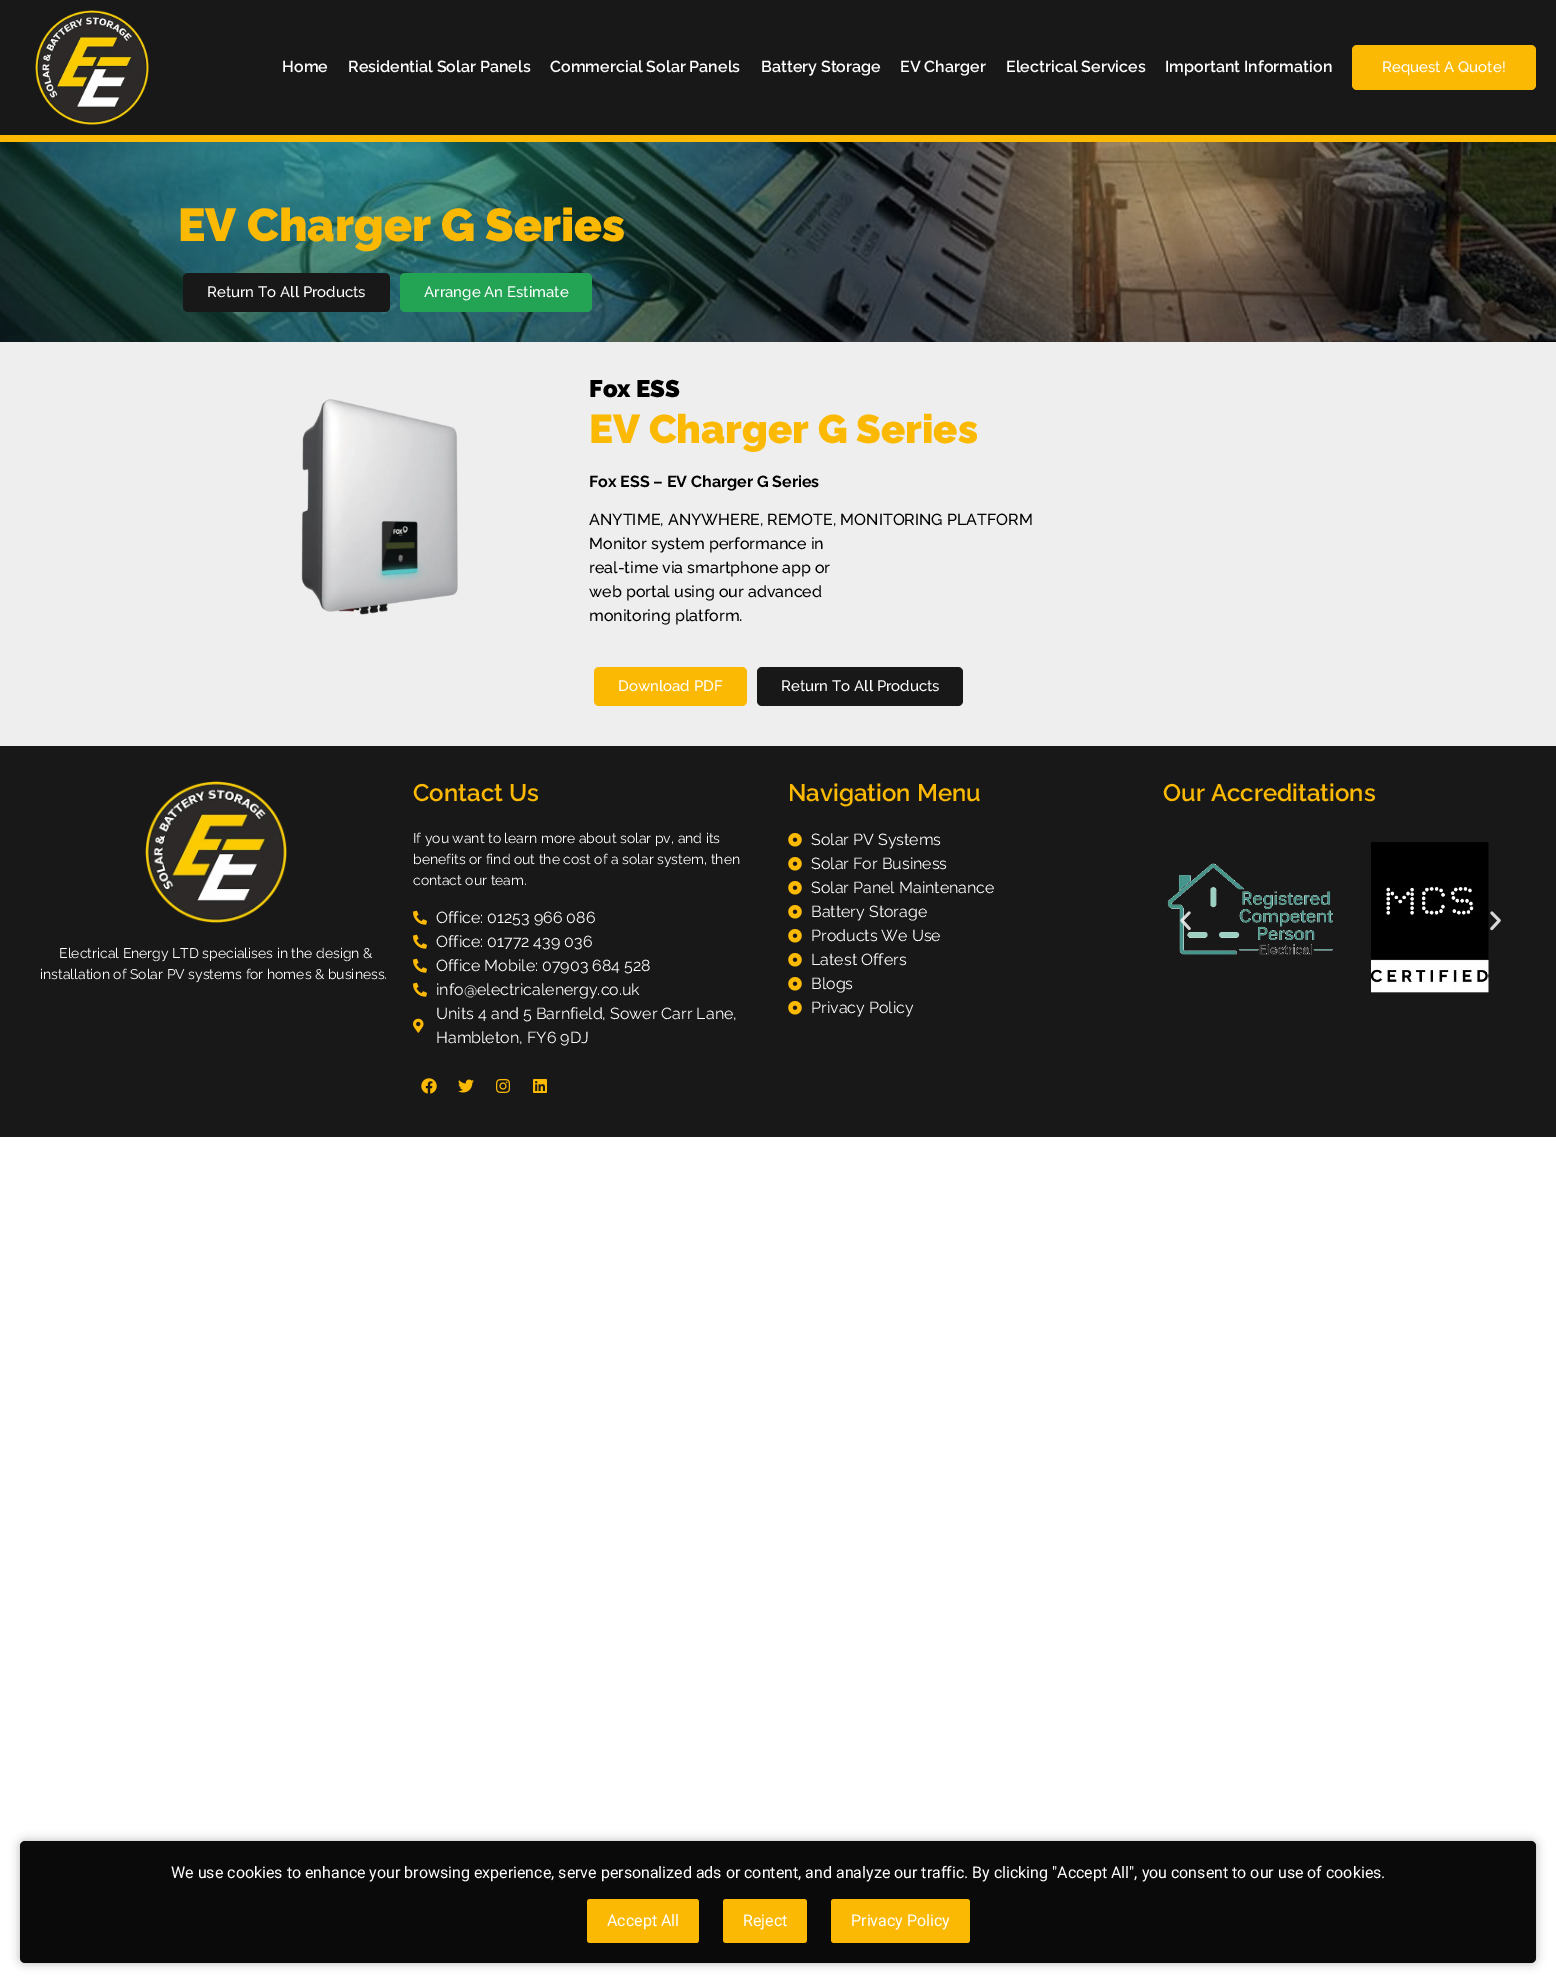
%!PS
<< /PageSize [1556 1983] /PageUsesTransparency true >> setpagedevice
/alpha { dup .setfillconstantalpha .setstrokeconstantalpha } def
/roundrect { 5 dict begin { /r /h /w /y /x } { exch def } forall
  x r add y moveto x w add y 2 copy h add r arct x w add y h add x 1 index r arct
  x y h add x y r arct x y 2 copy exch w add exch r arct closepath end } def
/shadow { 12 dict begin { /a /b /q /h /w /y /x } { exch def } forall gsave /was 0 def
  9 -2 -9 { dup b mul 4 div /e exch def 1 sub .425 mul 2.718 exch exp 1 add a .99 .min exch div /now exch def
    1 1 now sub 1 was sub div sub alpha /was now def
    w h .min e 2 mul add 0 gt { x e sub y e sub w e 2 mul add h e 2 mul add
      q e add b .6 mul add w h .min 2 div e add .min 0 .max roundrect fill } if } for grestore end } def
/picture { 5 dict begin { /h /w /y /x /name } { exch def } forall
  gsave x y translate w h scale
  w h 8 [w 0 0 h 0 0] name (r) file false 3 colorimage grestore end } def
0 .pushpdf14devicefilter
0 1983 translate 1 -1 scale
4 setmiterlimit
1 setgray
0 0 1556 1983 rectfill
0.094 setgray
0 0 1556 135 rectfill
0.988 0.725 0.012 setrgbcolor
0 135 1556 7 rectfill
(img1.rgb) 35 10 114 115 picture
/Raleway-SemiBold [16 0 0 -16 0 0] selectfont
1 setgray
282 72 moveto (Home) show
348 72 moveto (Residential Solar Panels) show
550 72 moveto (Commercial Solar Panels) show
761 72 moveto (Battery Storage) show
900 72 moveto (EV Charger) show
1006 72 moveto (Electrical Services) show
1165 72 moveto (Important Information) show
0.988 0.725 0.012 setrgbcolor
1352 45 184 45 5 roundrect fill
/Raleway-Medium [15 0 0 -15 0 0] selectfont
1 setgray
1382 72 moveto (Request A Quote!) show
(img2.rgb) 0 142 1556 200 picture
(img3.rgb) 0 142 1556 200 picture
/Raleway-Black [46 0 0 -46 0 0] selectfont
0.988 0.725 0.012 setrgbcolor
178 241 moveto (EV Charger G Series) show
0.094 setgray
183 273 207 39 5 roundrect fill
/Raleway-Medium [15 0 0 -15 0 0] selectfont
1 setgray
207 297 moveto (Return To All Products) show
0.137 0.643 0.333 setrgbcolor
400 273 192 39 5 roundrect fill
1 setgray
424 297 moveto (Arrange An Estimate) show
0.933 setgray
0 342 1556 404 rectfill
(img4.rgb) 301 399 157 216 picture
/Raleway-Black [24 0 0 -24 0 0] selectfont
0 setgray
589 397 moveto (Fox ESS) show
/Raleway-Black [40 0 0 -40 0 0] selectfont
0.988 0.725 0.012 setrgbcolor
589 443 moveto (EV Charger G Series) show
/Raleway-Bold [16 0 0 -16 0 0] selectfont
0 setgray
589 487 moveto (Fox ESS – EV Charger G Series) show
/Raleway-Medium [16 0 0 -16 0 0] selectfont
589 525 moveto (ANYTIME, ANYWHERE, REMOTE, MONITORING PLATFORM) show
589 549 moveto (Monitor system performance in) show
589 573 moveto (real-time via smartphone app or) show
589 597 moveto (web portal using our advanced) show
589 621 moveto (monitoring platform.) show
0.988 0.725 0.012 setrgbcolor
594 667 153 39 5 roundrect fill
/Raleway-Medium [15 0 0 -15 0 0] selectfont
1 setgray
618 691 moveto (Download PDF) show
0.094 setgray
757 667 206 39 5 roundrect fill
1 setgray
781 691 moveto (Return To All Products) show
0.094 setgray
0 746 1556 391 rectfill
/Raleway-SemiBold [24 0 0 -24 0 0] selectfont
0.988 0.725 0.012 setrgbcolor
413 801 moveto (Contact Us) show
/Raleway-Regular [14 0 0 -14 0 0] selectfont
1 setgray
413 843 moveto (If you want to learn more about solar pv, and its) show
413 864 moveto (benefits or find out the cost of a solar system, then) show
413 885 moveto (contact our team.) show
(img5.rgb) 413 910 14 15 picture
/Raleway-Regular [16 0 0 -16 0 0] selectfont
436 923 moveto (Office: 01253 966 086) show
(img5.rgb) 413 934 14 15 picture
436 947 moveto (Office: 01772 439 036) show
(img5.rgb) 413 958 14 15 picture
436 971 moveto (Office Mobile: 07903 684 528) show
(img5.rgb) 413 982 14 15 picture
436 995 moveto (info@electricalenergy.co.uk) show
(img6.rgb) 413 1018 11 15 picture
436 1019 moveto (Units 4 and 5 Barnfield, Sower Carr Lane,) show
436 1043 moveto (Hambleton, FY6 9DJ) show
(img7.rgb) 421 1078 16 16 picture
(img8.rgb) 458 1079 16 14 picture
(img9.rgb) 496 1079 14 14 picture
(img10.rgb) 533 1079 14 14 picture
/Raleway-SemiBold [24 0 0 -24 0 0] selectfont
0.988 0.725 0.012 setrgbcolor
788 801 moveto (Navigation Menu) show
(img11.rgb) 788 833 14 14 picture
/Raleway-Regular [16 0 0 -16 0 0] selectfont
1 setgray
811 845 moveto (Solar PV Systems) show
(img11.rgb) 788 857 14 14 picture
811 869 moveto (Solar For Business) show
(img11.rgb) 788 881 14 14 picture
811 893 moveto (Solar Panel Maintenance) show
(img11.rgb) 788 905 14 14 picture
811 917 moveto (Battery Storage) show
(img11.rgb) 788 929 14 14 picture
811 941 moveto (Products We Use) show
(img11.rgb) 788 953 14 14 picture
811 965 moveto (Latest Offers) show
(img11.rgb) 788 977 14 14 picture
811 989 moveto (Blogs) show
(img11.rgb) 788 1001 14 14 picture
811 1013 moveto (Privacy Policy) show
/Raleway-SemiBold [24 0 0 -24 0 0] selectfont
0.988 0.725 0.012 setrgbcolor
1163 801 moveto (Our Accreditations) show
(img12.rgb) 1167 863 166 92 picture
(img13.rgb) 1371 842 118 151 picture
(img14.rgb) 1180 911 11 20 picture
(img15.rgb) 1490 911 11 20 picture
(img16.rgb) 145 781 142 142 picture
/Raleway-Regular [14 0 0 -14 0 0] selectfont
1 setgray
59 958 moveto (Electrical Energy LTD specialises in the design &) show
40 979 moveto (installation of Solar PV systems for homes & business.) show
0 setgray
20 1841 1516 122 5 5 0.3 shadow
0.039 setgray
20 1841 1516 122 5 roundrect fill
/Roboto-Regular [16 0 0 -16 0 0] selectfont
1 setgray
171 1878 moveto (We use cookies to enhance your browsing experience, serve personalized ads or content, and analyze our traffic. By clicking "Accept All", you consent to our use of cookies.) show
0.988 0.725 0.012 setrgbcolor
587 1899 112 44 3 roundrect fill
1 setgray
607 1926 moveto (Accept All) show
0.988 0.725 0.012 setrgbcolor
723 1899 84 44 3 roundrect fill
1 setgray
743 1926 moveto (Reject) show
0.988 0.725 0.012 setrgbcolor
831 1899 139 44 3 roundrect fill
1 setgray
851 1926 moveto (Privacy Policy) show
.poppdf14devicefilter showpage
